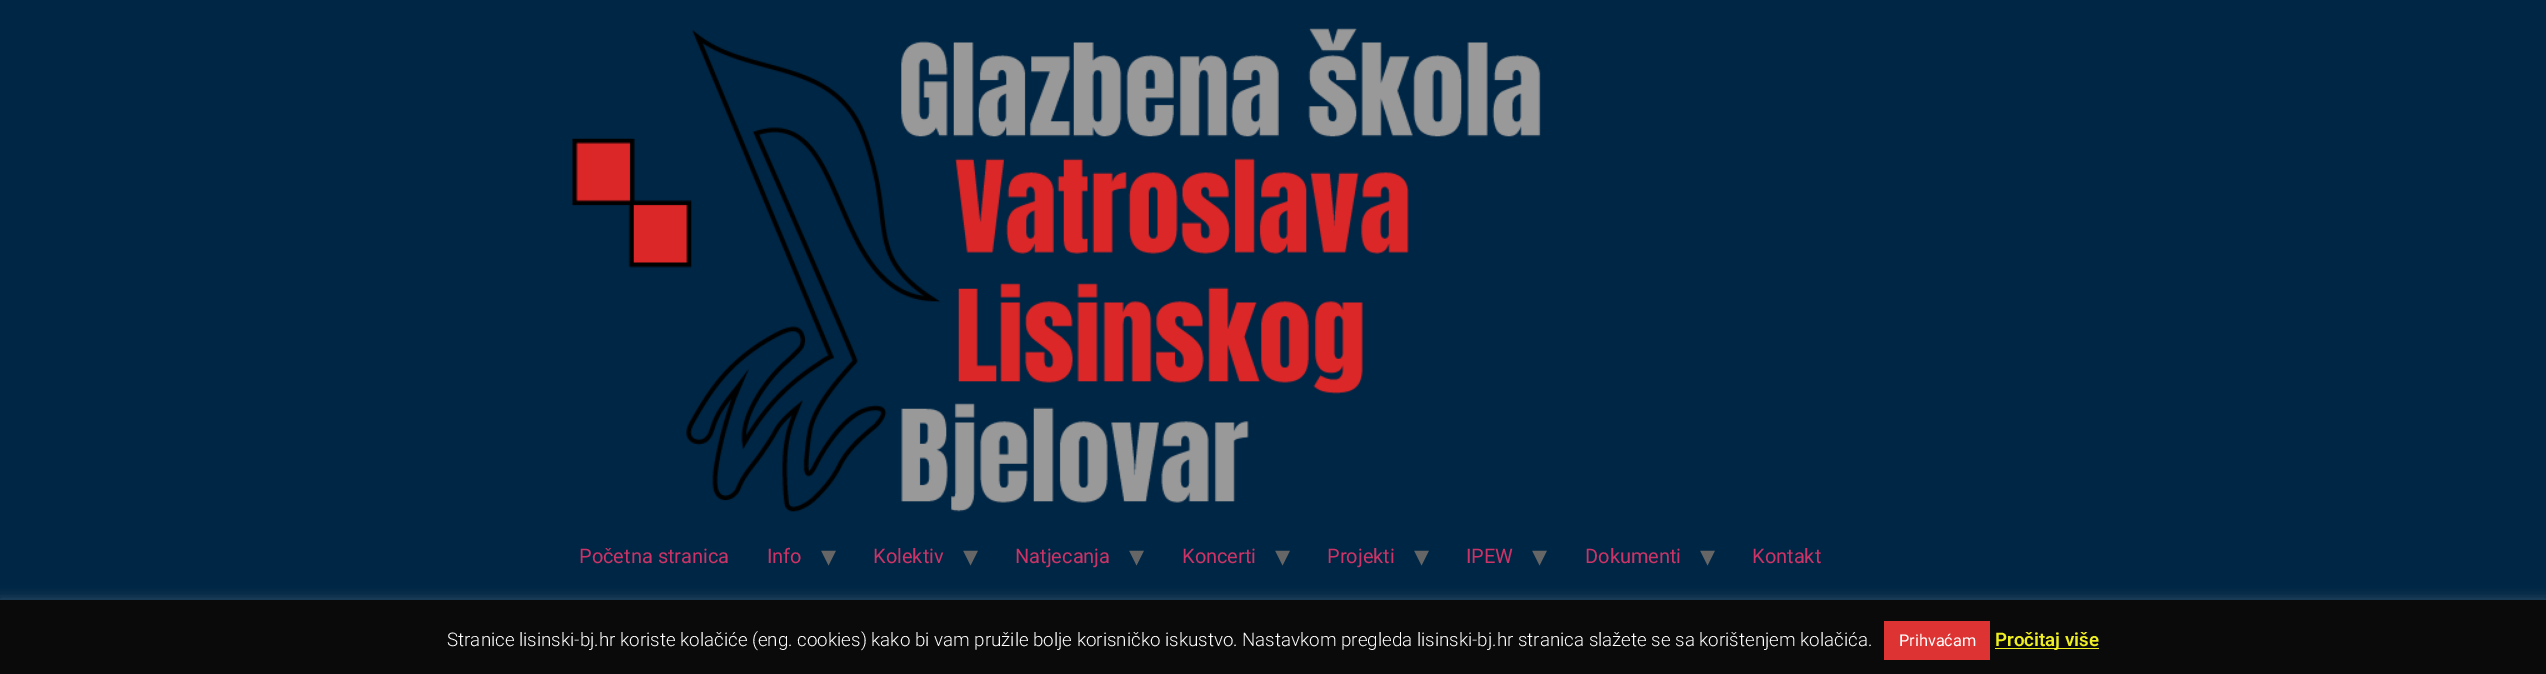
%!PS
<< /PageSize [2546 674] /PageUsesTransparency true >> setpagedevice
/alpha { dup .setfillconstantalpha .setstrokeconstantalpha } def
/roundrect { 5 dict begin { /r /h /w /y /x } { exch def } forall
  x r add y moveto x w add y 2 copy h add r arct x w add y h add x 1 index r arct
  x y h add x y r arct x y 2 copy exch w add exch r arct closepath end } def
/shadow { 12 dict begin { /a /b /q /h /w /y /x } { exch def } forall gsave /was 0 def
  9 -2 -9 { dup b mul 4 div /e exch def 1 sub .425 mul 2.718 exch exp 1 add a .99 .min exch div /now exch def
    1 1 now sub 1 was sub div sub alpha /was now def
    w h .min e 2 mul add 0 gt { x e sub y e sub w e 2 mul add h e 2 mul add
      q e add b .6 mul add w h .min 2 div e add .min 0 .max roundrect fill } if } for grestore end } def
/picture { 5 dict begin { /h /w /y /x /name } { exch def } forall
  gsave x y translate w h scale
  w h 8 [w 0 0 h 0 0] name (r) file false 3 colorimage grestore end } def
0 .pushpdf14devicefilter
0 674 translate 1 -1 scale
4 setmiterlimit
0 0.149 0.271 setrgbcolor
0 0 2546 674 rectfill
(img1.rgb) 572 28 969 484 picture
/Roboto-Regular [20 0 0 -20 0 0] selectfont
0.8 0.2 0.4 setrgbcolor
579 563 moveto (Početna stranica) show
767 563 moveto (Info) show
/DejaVuSans-Regular [30 0 0 -30 0 0] selectfont
0.4 setgray
821 566 moveto (▾) show
/Roboto-Regular [20 0 0 -20 0 0] selectfont
0.8 0.2 0.4 setrgbcolor
873 563 moveto (Kolektiv) show
/DejaVuSans-Regular [30 0 0 -30 0 0] selectfont
0.4 setgray
963 566 moveto (▾) show
/Roboto-Regular [20 0 0 -20 0 0] selectfont
0.8 0.2 0.4 setrgbcolor
1015 563 moveto (Natjecanja) show
/DejaVuSans-Regular [30 0 0 -30 0 0] selectfont
0.4 setgray
1129 566 moveto (▾) show
/Roboto-Regular [20 0 0 -20 0 0] selectfont
0.8 0.2 0.4 setrgbcolor
1182 563 moveto (Koncerti) show
/DejaVuSans-Regular [30 0 0 -30 0 0] selectfont
0.4 setgray
1275 566 moveto (▾) show
/Roboto-Regular [20 0 0 -20 0 0] selectfont
0.8 0.2 0.4 setrgbcolor
1327 563 moveto (Projekti) show
/DejaVuSans-Regular [30 0 0 -30 0 0] selectfont
0.4 setgray
1414 566 moveto (▾) show
/Roboto-Regular [20 0 0 -20 0 0] selectfont
0.8 0.2 0.4 setrgbcolor
1466 563 moveto (IPEW) show
/DejaVuSans-Regular [30 0 0 -30 0 0] selectfont
0.4 setgray
1532 566 moveto (▾) show
/Roboto-Regular [20 0 0 -20 0 0] selectfont
0.8 0.2 0.4 setrgbcolor
1585 563 moveto (Dokumenti) show
/DejaVuSans-Regular [30 0 0 -30 0 0] selectfont
0.4 setgray
1700 566 moveto (▾) show
/Roboto-Regular [20 0 0 -20 0 0] selectfont
0.8 0.2 0.4 setrgbcolor
1752 563 moveto (Kontakt) show
0.675 0.671 0.671 setrgbcolor
0 599 2546 75 0 6 0.3 shadow
0.039 setgray
0 600 2546 74 rectfill
/Roboto-Light [18.75 0 0 -18.75 0 0] selectfont
1 setgray
447 646 moveto (Stranice lisinski-bj.hr koriste kolačiće \(eng. cookies\) kako bi vam pružile bolje korisničko iskustvo. Nastavkom pregleda lisinski-bj.hr stranica slažete se sa korištenjem kolačića.) show
0.867 0.2 0.2 setrgbcolor
1884 621 106 39 rectfill
/Roboto-Regular [16.25 0 0 -16.25 0 0] selectfont
1 setgray
1899 646 moveto (Prihvaćam) show
0.933 0.933 0.133 setrgbcolor
1995 648 104 1 rectfill
/Roboto-SemiBold [18.75 0 0 -18.75 0 0] selectfont
1995 646 moveto (Pročitaj više) show
.poppdf14devicefilter showpage
